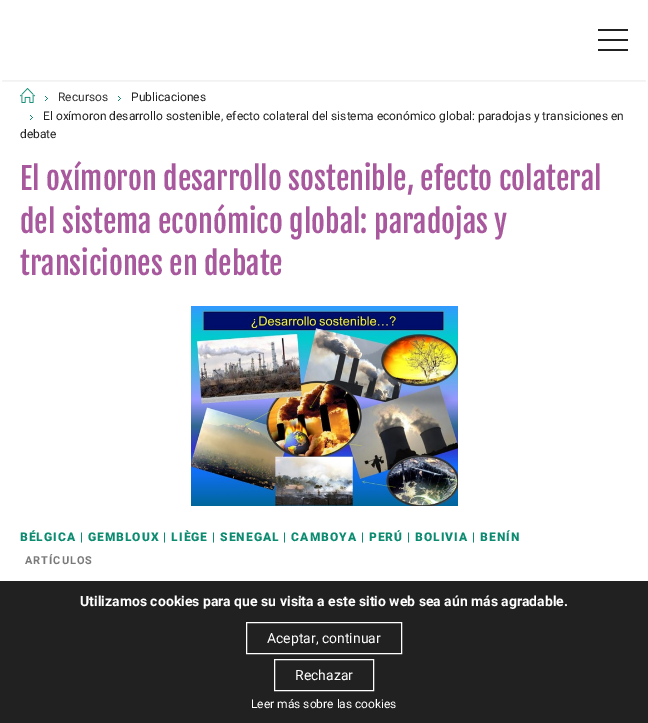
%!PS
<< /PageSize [648 723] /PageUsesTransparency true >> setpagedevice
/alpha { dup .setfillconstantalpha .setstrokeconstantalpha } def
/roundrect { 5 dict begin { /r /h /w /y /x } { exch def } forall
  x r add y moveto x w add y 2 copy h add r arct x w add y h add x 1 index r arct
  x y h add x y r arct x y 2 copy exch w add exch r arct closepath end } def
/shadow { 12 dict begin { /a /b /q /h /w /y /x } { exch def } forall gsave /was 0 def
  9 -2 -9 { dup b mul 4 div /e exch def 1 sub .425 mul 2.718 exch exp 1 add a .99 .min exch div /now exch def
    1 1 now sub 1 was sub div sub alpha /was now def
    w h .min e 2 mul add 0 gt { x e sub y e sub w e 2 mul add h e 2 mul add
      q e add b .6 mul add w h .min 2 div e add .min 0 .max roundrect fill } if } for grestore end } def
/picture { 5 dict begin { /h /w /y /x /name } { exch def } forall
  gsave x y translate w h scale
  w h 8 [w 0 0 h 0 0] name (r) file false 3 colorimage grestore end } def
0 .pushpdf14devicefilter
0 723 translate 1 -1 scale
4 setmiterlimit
1 setgray
0 0 648 723 rectfill
gsave
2 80 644 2 rectclip
0 setgray
2 6 644 76 0 1 0.06 shadow
grestore
0.129 setgray
598 39 30 2 rectfill
598 29 30 2 rectfill
598 49 30 2 rectfill
(img1.rgb) 20 88 15 15 picture
(img2.rgb) 45 96 3 5 picture
/Roboto-Regular [12 0 0 -12 0 0] selectfont
0.2 setgray
58 101 moveto (Recursos) show
(img2.rgb) 118 96 3 5 picture
0.129 setgray
131 101 moveto (Publicaciones) show
(img2.rgb) 30 115 3 5 picture
43 120 moveto (El oxímoron desarrollo sostenible, efecto colateral del sistema económico global: paradojas y transiciones en) show
20 138 moveto (debate) show
/FjallaOne-Regular [30 0 0 -30 0 0] selectfont
0.659 0.345 0.616 setrgbcolor
20 190 moveto (El oxímoron desarrollo sostenible, efecto colateral) show
20 233 moveto (del sistema económico global: paradojas y) show
20 275 moveto (transiciones en debate) show
(img3.rgb) 191 306 267 200 picture
/Roboto-Black [12 0 0 -12 0 0] selectfont
0.047 0.545 0.443 setrgbcolor
20 541 moveto 1 0 (BÉLGICA | GEMBLOUX | LIÈGE | SENEGAL | CAMBOYA | PERÚ | BOLIVIA | BENÍN) ashow
/Roboto-Bold [11 0 0 -11 0 0] selectfont
0.478 setgray
25 564 moveto 1 0 (ARTÍCULOS) ashow
0.129 setgray
0 581 648 142 rectfill
/Roboto-Bold [14 0 0 -14 0 0] selectfont
1 setgray
80 606 moveto (Utilizamos cookies para que su visita a este sitio web sea aún más agradable.) show
246.5 622.5 155 31 rectstroke
/Roboto-Regular [14 0 0 -14 0 0] selectfont
267 643 moveto (Aceptar, continuar) show
274.5 659.5 99 31 rectstroke
295 680 moveto (Rechazar) show
/Roboto-Regular [12 0 0 -12 0 0] selectfont
251 708 moveto (Leer más sobre las cookies) show
.poppdf14devicefilter showpage
